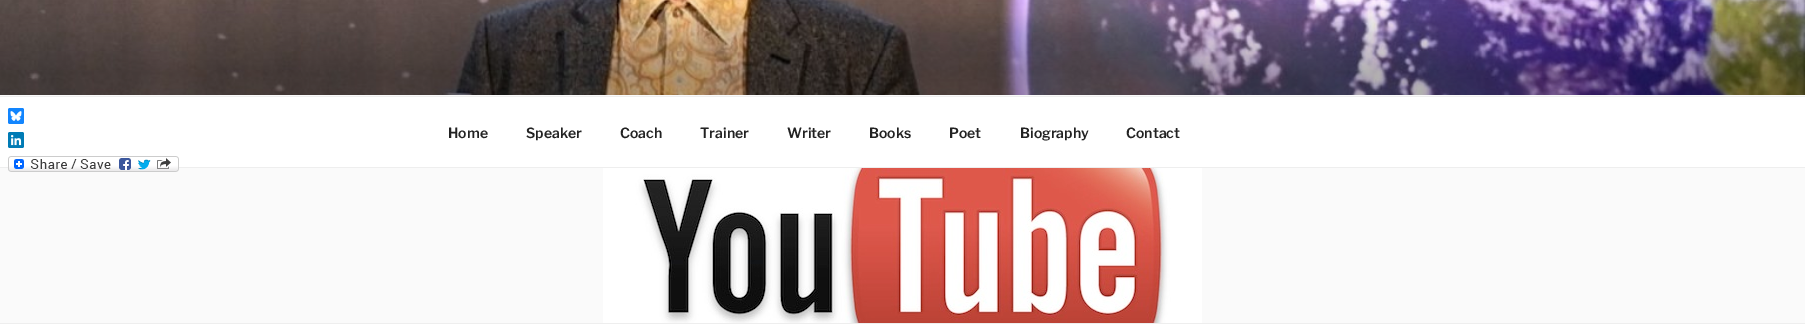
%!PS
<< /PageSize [1805 328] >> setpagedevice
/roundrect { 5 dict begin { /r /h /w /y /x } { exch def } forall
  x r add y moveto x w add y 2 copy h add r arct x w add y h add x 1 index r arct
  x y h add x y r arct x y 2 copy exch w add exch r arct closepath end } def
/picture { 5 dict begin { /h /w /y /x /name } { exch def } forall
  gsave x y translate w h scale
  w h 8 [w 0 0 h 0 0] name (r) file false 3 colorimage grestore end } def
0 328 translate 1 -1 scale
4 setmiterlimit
1 setgray
0 0 1805 328 rectfill
0.071 0.522 0.996 setrgbcolor
8 108 16 16 2 roundrect fill
(img1.rgb) 10 111 12 10 picture
0 0.482 0.71 setrgbcolor
8 132 16 16 2 roundrect fill
(img2.rgb) 11 135 11 11 picture
0.933 setgray
0 167 1805 1 rectfill
0.98 setgray
0 168 1805 155 rectfill
(img3.rgb) 8 156 171 16 picture
0 95 1805 1 rectfill
(img4.rgb) 0 0 1805 95 picture
0.933 setgray
0 96 1805 1 rectfill
/LibreFranklin-SemiBold [14 0 0 -14 0 0] selectfont
0.133 setgray
448 138 moveto (Home) show
526 138 moveto (Speaker) show
620 138 moveto (Coach) show
700 138 moveto (Trainer) show
787 138 moveto (Writer) show
869 138 moveto (Books) show
949 138 moveto (Poet) show
1020 138 moveto (Biography) show
1126 138 moveto (Contact) show
0.933 setgray
0 323 1805 1 rectfill
(img5.rgb) 603 168 599 155 picture
showpage
